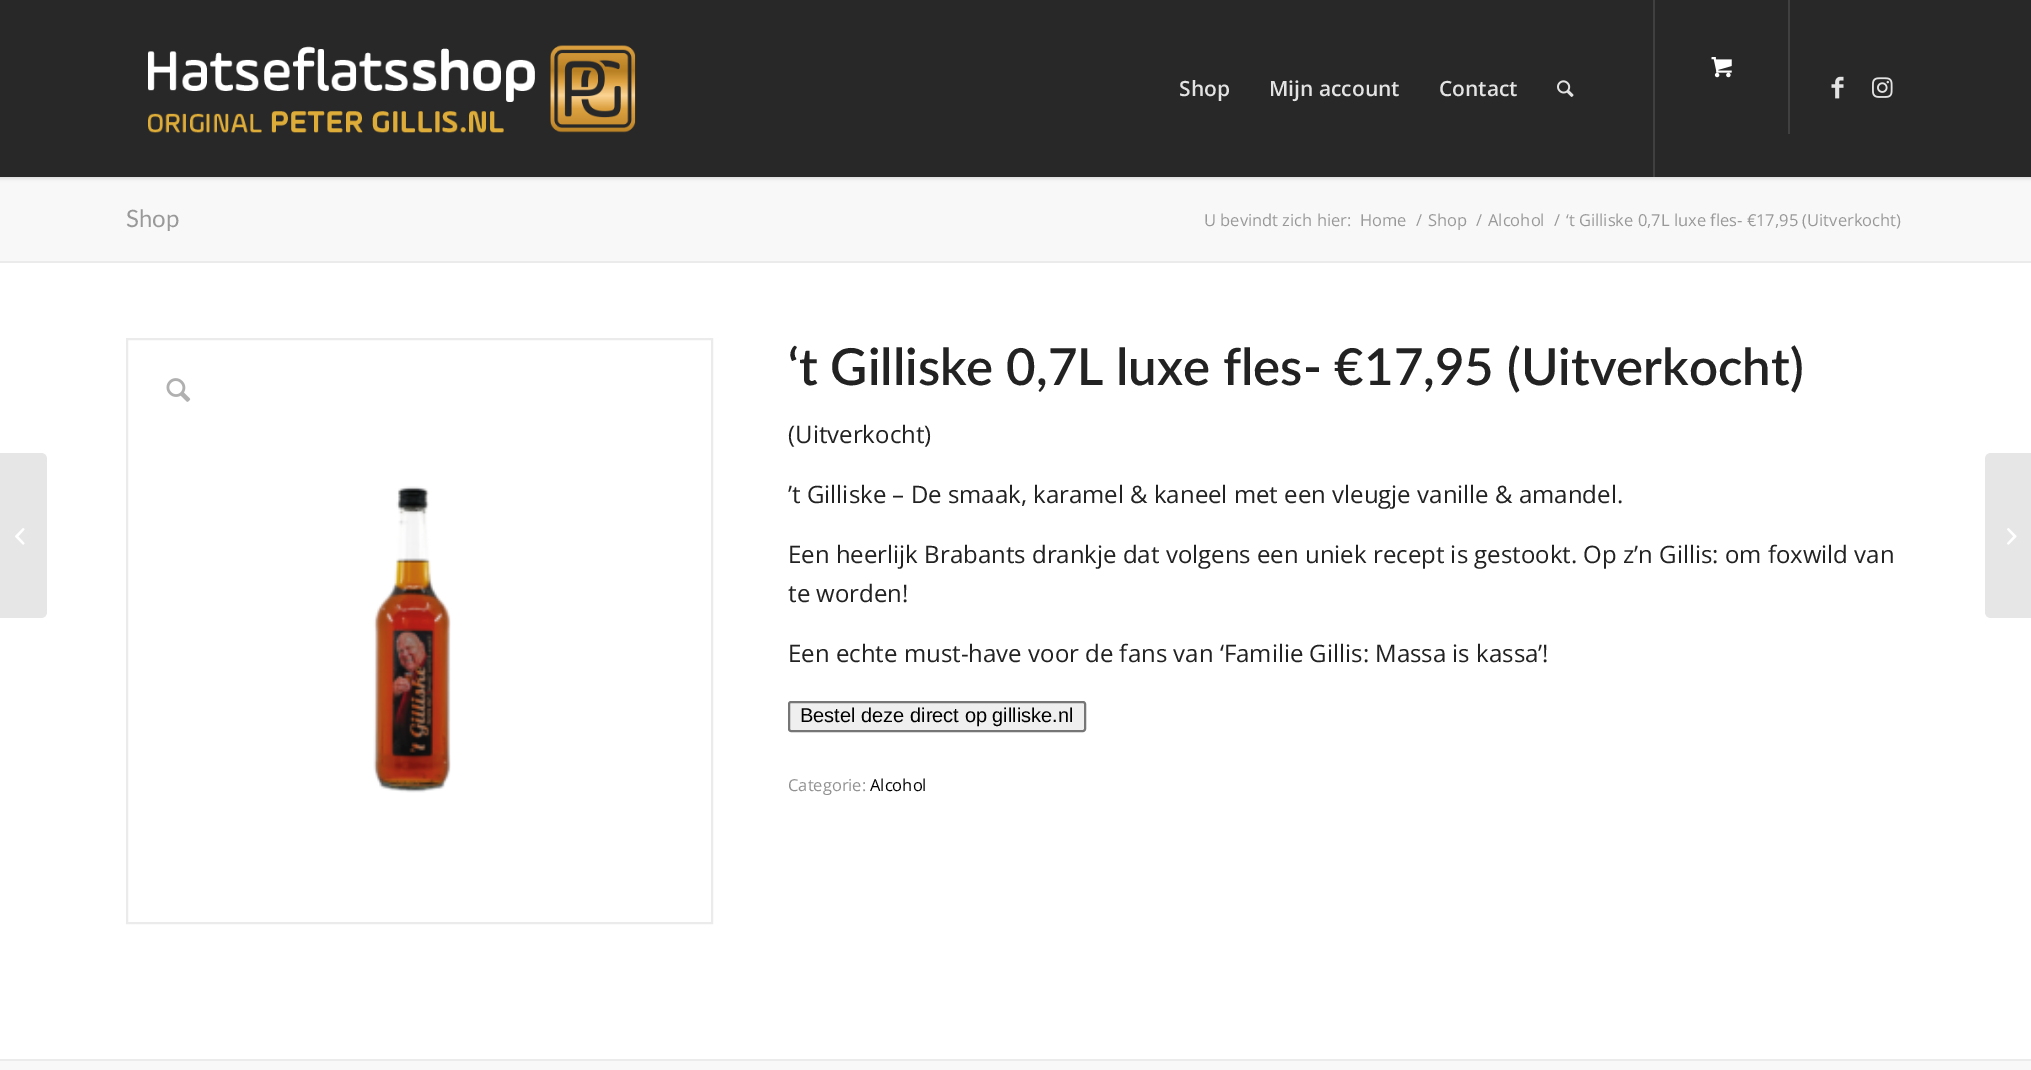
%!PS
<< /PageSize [2031 1070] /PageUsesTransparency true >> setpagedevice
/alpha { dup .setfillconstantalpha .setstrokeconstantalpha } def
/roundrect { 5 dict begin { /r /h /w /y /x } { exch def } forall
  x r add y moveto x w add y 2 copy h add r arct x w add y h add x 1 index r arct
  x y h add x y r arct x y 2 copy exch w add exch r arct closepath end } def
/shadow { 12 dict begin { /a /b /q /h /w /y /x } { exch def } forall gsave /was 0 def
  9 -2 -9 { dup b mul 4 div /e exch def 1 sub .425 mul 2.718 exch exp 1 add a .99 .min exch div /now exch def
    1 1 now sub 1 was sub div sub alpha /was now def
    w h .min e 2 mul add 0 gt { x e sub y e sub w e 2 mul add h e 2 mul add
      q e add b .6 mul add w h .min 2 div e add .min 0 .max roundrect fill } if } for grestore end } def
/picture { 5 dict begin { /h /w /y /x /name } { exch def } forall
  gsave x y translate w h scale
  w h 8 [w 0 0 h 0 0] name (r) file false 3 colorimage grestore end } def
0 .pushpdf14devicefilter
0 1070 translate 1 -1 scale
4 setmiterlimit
0.973 setgray
0 0 2031 1070 rectfill
0 setgray
-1 -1 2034 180 0 1.5 0.1 shadow
0.157 setgray
0 0 2031 177 rectfill
(img1.rgb) 148 45 488 88 picture
0.251 setgray
1653 0 2 177 rectfill
/OpenSans-SemiBold [21 0 0 -21 0 0] selectfont
0.89 setgray
1179 96 moveto (Shop) show
1269 96 moveto (Mijn account) show
1439 96 moveto (Contact) show
(img2.rgb) 1557 80 17 17 picture
0.251 setgray
1788 0 2 134 rectfill
(img3.rgb) 1711 57 21 21 picture
(img4.rgb) 1831 76 13 23 picture
(img5.rgb) 1872 77 21 21 picture
1 setgray
0 263 2031 796 rectfill
0.902 setgray
newpath 0 453 moveto 41 453 lineto 44.5 453 47 455.5 47 459 curveto 47 612 lineto 47 615.5 44.5 618 41 618 curveto 0 618 lineto closepath fill
(img6.rgb) 15 528 10 17 picture
/Lato-Regular [24 0 0 -24 0 0] selectfont
0.6 setgray
126 227 moveto (Shop) show
/OpenSans-Regular [16.5 0 0 -16.5 0 0] selectfont
1204 226 moveto (U bevindt zich hier:) show
1360 226 moveto (Home) show
1416 226 moveto (/) show
1428 226 moveto (Shop) show
1476 226 moveto (/) show
1488 226 moveto (Alcohol) show
1554 226 moveto (/) show
1566 226 moveto (‘t Gilliske 0,7L luxe fles- €17,95 \(Uitverkocht\)) show
0.922 setgray
0 261 2031 2 rectfill
2 setlinewidth
127 339 585 584 rectstroke
(img7.rgb) 373 486 78 307 picture
(img8.rgb) 166 378 25 24 picture
/Lato-SemiBold [51 0 0 -51 0 0] selectfont
0.133 setgray
788 385 moveto (‘t Gilliske 0,7L luxe fles- €17,95 \(Uitverkocht\)) show
/OpenSans-Regular [24 0 0 -24 0 0] selectfont
788 443 moveto (\(Uitverkocht\)) show
788 503 moveto (’t Gilliske – De smaak, karamel & kaneel met een vleugje vanille & amandel.) show
788 563 moveto (Een heerlijk Brabants drankje dat volgens een uniek recept is gestookt. Op z’n Gillis: om foxwild van) show
788 602 moveto (te worden!) show
788 662 moveto (Een echte must-have voor de fans van ‘Familie Gillis: Massa is kassa’!) show
0.937 setgray
789 702 296 29 2 roundrect gsave fill grestore
0.463 setgray
stroke
/LiberationSans-Regular [20 0 0 -20 0 0] selectfont
0 setgray
800 722 moveto (Bestel deze direct op gilliske.nl) show
/OpenSans-Regular [16.5 0 0 -16.5 0 0] selectfont
0.569 setgray
788 791 moveto (Categorie:) show
0 setgray
870 791 moveto (Alcohol) show
0.922 setgray
0 1059 2031 2 rectfill
0.902 setgray
newpath 1991 453 moveto 2031 453 lineto 2031 618 lineto 1991 618 lineto 1987.5 618 1985 615.5 1985 612 curveto 1985 459 lineto 1985 455.5 1987.5 453 1991 453 curveto closepath fill
(img9.rgb) 2007 528 10 17 picture
.poppdf14devicefilter showpage
